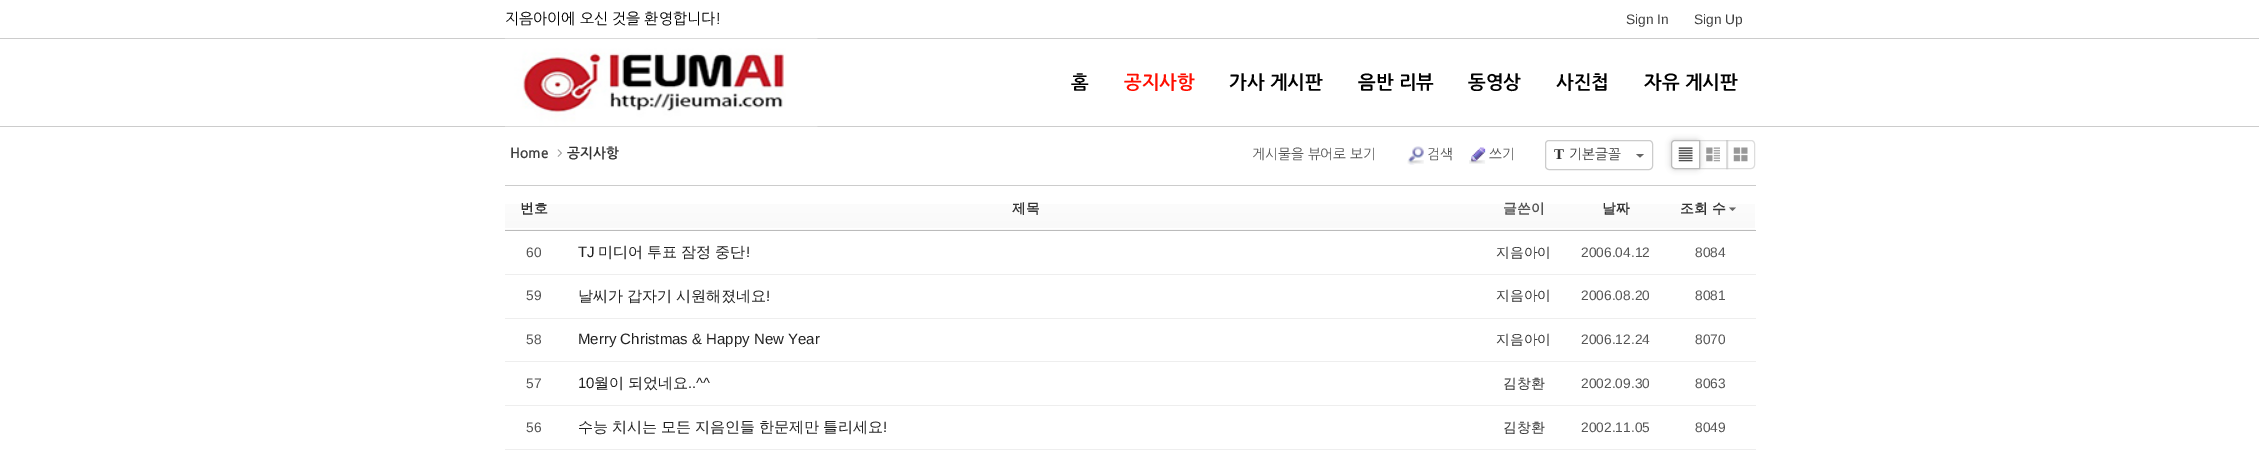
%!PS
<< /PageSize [2259 454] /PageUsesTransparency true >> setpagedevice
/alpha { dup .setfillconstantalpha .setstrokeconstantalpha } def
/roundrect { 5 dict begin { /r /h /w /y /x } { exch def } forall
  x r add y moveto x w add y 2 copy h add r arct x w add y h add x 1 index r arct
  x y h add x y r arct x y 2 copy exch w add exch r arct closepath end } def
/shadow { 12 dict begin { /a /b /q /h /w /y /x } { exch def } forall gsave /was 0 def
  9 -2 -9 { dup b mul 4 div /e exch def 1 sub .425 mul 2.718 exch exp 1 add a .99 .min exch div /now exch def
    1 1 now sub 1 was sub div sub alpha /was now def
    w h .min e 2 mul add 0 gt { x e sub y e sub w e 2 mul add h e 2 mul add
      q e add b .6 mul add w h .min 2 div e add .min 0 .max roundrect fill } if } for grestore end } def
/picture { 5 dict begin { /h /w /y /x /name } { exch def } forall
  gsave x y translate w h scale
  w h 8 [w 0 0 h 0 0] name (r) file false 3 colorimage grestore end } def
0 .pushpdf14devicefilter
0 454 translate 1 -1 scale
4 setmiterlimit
1 setgray
0 0 2259 454 rectfill
0.8 setgray
0 38 2259 1 rectfill
/NanumGothic-Regular [15 0 0 -15 0 0] selectfont
0 setgray
505 24 moveto (지음아이에 오신 것을 환영합니다!) show
/LiberationSans-Regular [13.75 0 0 -13.75 0 0] selectfont
0.251 setgray
1626 24 moveto (Sign In) show
1694 24 moveto (Sign Up) show
0.8 setgray
0 126 2259 1 rectfill
(img1.rgb) 505 38 313 89 picture
/NanumGothic-Bold [18.75 0 0 -18.75 0 0] selectfont
0 setgray
1071 89 moveto (홈) show
1 0.055 0 setrgbcolor
1124 89 moveto (공지사항) show
0 setgray
1229 89 moveto (가사 게시판) show
1358 89 moveto (음반 리뷰) show
1468 89 moveto (동영상) show
1556 89 moveto (사진첩) show
1644 89 moveto (자유 게시판) show
/NanumGothic-Bold [13.75 0 0 -13.75 0 0] selectfont
0.251 setgray
510 158 moveto (Home) show
(img2.rgb) 557 149 5 8 picture
0.2 setgray
567 158 moveto (공지사항) show
/NanumGothic-Regular [13.75 0 0 -13.75 0 0] selectfont
0.333 setgray
1252 159 moveto (게시물을 뷰어로 보기) show
(img3.rgb) 1407 146 17 19 picture
1427 159 moveto (검색) show
(img4.rgb) 1469 147 17 17 picture
1489 159 moveto (쓰기) show
0.8 setgray
1545.5 140.5 107 29 3.5 roundrect stroke
/LiberationSerif-Bold [15 0 0 -15 0 0] selectfont
0.2 setgray
1554 159 moveto (T) show
/NanumGothic-Regular [13.75 0 0 -13.75 0 0] selectfont
1569 159 moveto (기본글꼴) show
0.4 setgray
newpath 1636 154 moveto 1644 154 lineto 1640 157.5 lineto closepath fill
gsave
newpath 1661 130 moveto 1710 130 lineto 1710 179 lineto 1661 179 lineto closepath 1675 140 moveto 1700 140 lineto 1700 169 lineto 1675 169 lineto 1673 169 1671 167 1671 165 curveto 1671 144 lineto 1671 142 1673 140 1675 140 curveto closepath eoclip newpath
0 setgray
1671 140 29 29 4 3 0.2 shadow
grestore
0.733 setgray
newpath 1675 140.5 moveto 1699.5 140.5 lineto 1699.5 168.5 lineto 1675 168.5 lineto 1673 168.5 1671.5 167 1671.5 165 curveto 1671.5 144 lineto 1671.5 142 1673 140.5 1675 140.5 curveto closepath stroke
(img5.rgb) 1678 147 15 15 picture
0.5 alpha
1699.5 140.5 28 28 rectstroke
1 alpha
(img6.rgb) 1706 147 14 15 picture
0.5 alpha
newpath 1726.5 140.5 moveto 1751 140.5 lineto 1753 140.5 1754.5 142 1754.5 144 curveto 1754.5 165 lineto 1754.5 167 1753 168.5 1751 168.5 curveto 1726.5 168.5 lineto closepath stroke
1 alpha
(img7.rgb) 1733 147 15 15 picture
gsave newpath 505 204 moveto 1755 204 lineto 1755 230 lineto 505 230 lineto closepath clip newpath
<< /ShadingType 2 /ColorSpace /DeviceRGB /Coords [1130 186 1130 230] /Extend [true true] /Function << /FunctionType 2 /Domain [0 1] /C0 [1 1 1] /C1 [0.976 0.976 0.976] /N 1 >> >> shfill grestore
1 setgray
505 228 1250 1 rectfill
/WenQuanYiZenHei-Bold [13.75 0 0 -13.75 0 0] selectfont
0.2 setgray
520 213 moveto (번호) show
1012 213 moveto (제목) show
0.333 setgray
1503 213 moveto (글쓴이) show
0.2 setgray
1602 213 moveto (날짜) show
0.8 setgray
505 185 1251 1 rectfill
0.733 setgray
505 230 1251 1 rectfill
0.2 setgray
1680 213 moveto (조회 수) show
0.4 setgray
newpath 1729 207.5 moveto 1736 207.5 lineto 1732.5 211 lineto closepath fill
/LiberationSans-Regular [13.75 0 0 -13.75 0 0] selectfont
0.333 setgray
526 257 moveto (60) show
/LiberationSans-Regular [15 0 0 -15 0 0] selectfont
0.133 setgray
578 257 moveto (TJ) show
/WenQuanYiZenHei-Medium [15 0 0 -15 0 0] selectfont
598 257 moveto -0.5 0 32 (미디어 투표 잠정 중단) widthshow
/LiberationSans-Regular [15 0 0 -15 0 0] selectfont
746 257 moveto (!) show
/WenQuanYiZenHei-Medium [13.75 0 0 -13.75 0 0] selectfont
0.2 setgray
1496 257 moveto (지음아이) show
/LiberationSans-Regular [13.75 0 0 -13.75 0 0] selectfont
0.333 setgray
1581 257 moveto (2006.04.12) show
0.933 setgray
505 274 1251 1 rectfill
0.333 setgray
1695 257 moveto (8084) show
526 300 moveto (59) show
/WenQuanYiZenHei-Medium [15 0 0 -15 0 0] selectfont
0.133 setgray
578 301 moveto -0.5 0 32 (날씨가 갑자기 시원해졌네요) widthshow
/LiberationSans-Regular [15 0 0 -15 0 0] selectfont
766 301 moveto (!) show
/WenQuanYiZenHei-Medium [13.75 0 0 -13.75 0 0] selectfont
0.2 setgray
1496 300 moveto (지음아이) show
/LiberationSans-Regular [13.75 0 0 -13.75 0 0] selectfont
0.333 setgray
1581 300 moveto (2006.08.20) show
0.933 setgray
505 318 1251 1 rectfill
0.333 setgray
1695 300 moveto (8081) show
526 344 moveto (58) show
/LiberationSans-Regular [15 0 0 -15 0 0] selectfont
0.133 setgray
578 344 moveto (Merry Christmas & Happy New Year) show
/WenQuanYiZenHei-Medium [13.75 0 0 -13.75 0 0] selectfont
0.2 setgray
1496 344 moveto (지음아이) show
/LiberationSans-Regular [13.75 0 0 -13.75 0 0] selectfont
0.333 setgray
1581 344 moveto (2006.12.24) show
0.933 setgray
505 361 1251 1 rectfill
0.333 setgray
1695 344 moveto (8070) show
526 388 moveto (57) show
/LiberationSans-Regular [15 0 0 -15 0 0] selectfont
0.133 setgray
578 388 moveto (10) show
/WenQuanYiZenHei-Medium [15 0 0 -15 0 0] selectfont
594 388 moveto -0.5 0 32 (월이 되었네요) widthshow
/LiberationSans-Regular [15 0 0 -15 0 0] selectfont
688 388 moveto (..^^) show
/WenQuanYiZenHei-Medium [13.75 0 0 -13.75 0 0] selectfont
0.2 setgray
1503 388 moveto (김창환) show
/LiberationSans-Regular [13.75 0 0 -13.75 0 0] selectfont
0.333 setgray
1581 388 moveto (2002.09.30) show
0.933 setgray
505 405 1251 1 rectfill
0.333 setgray
1695 388 moveto (8063) show
526 432 moveto (56) show
/WenQuanYiZenHei-Medium [15 0 0 -15 0 0] selectfont
0.133 setgray
578 432 moveto -0.5 0 32 (수능 치시는 모든 지음인들 한문제만 틀리세요) widthshow
/LiberationSans-Regular [15 0 0 -15 0 0] selectfont
883 432 moveto (!) show
/WenQuanYiZenHei-Medium [13.75 0 0 -13.75 0 0] selectfont
0.2 setgray
1503 432 moveto (김창환) show
/LiberationSans-Regular [13.75 0 0 -13.75 0 0] selectfont
0.333 setgray
1581 432 moveto (2002.11.05) show
0.933 setgray
505 449 1251 1 rectfill
0.333 setgray
1695 432 moveto (8049) show
.poppdf14devicefilter showpage
